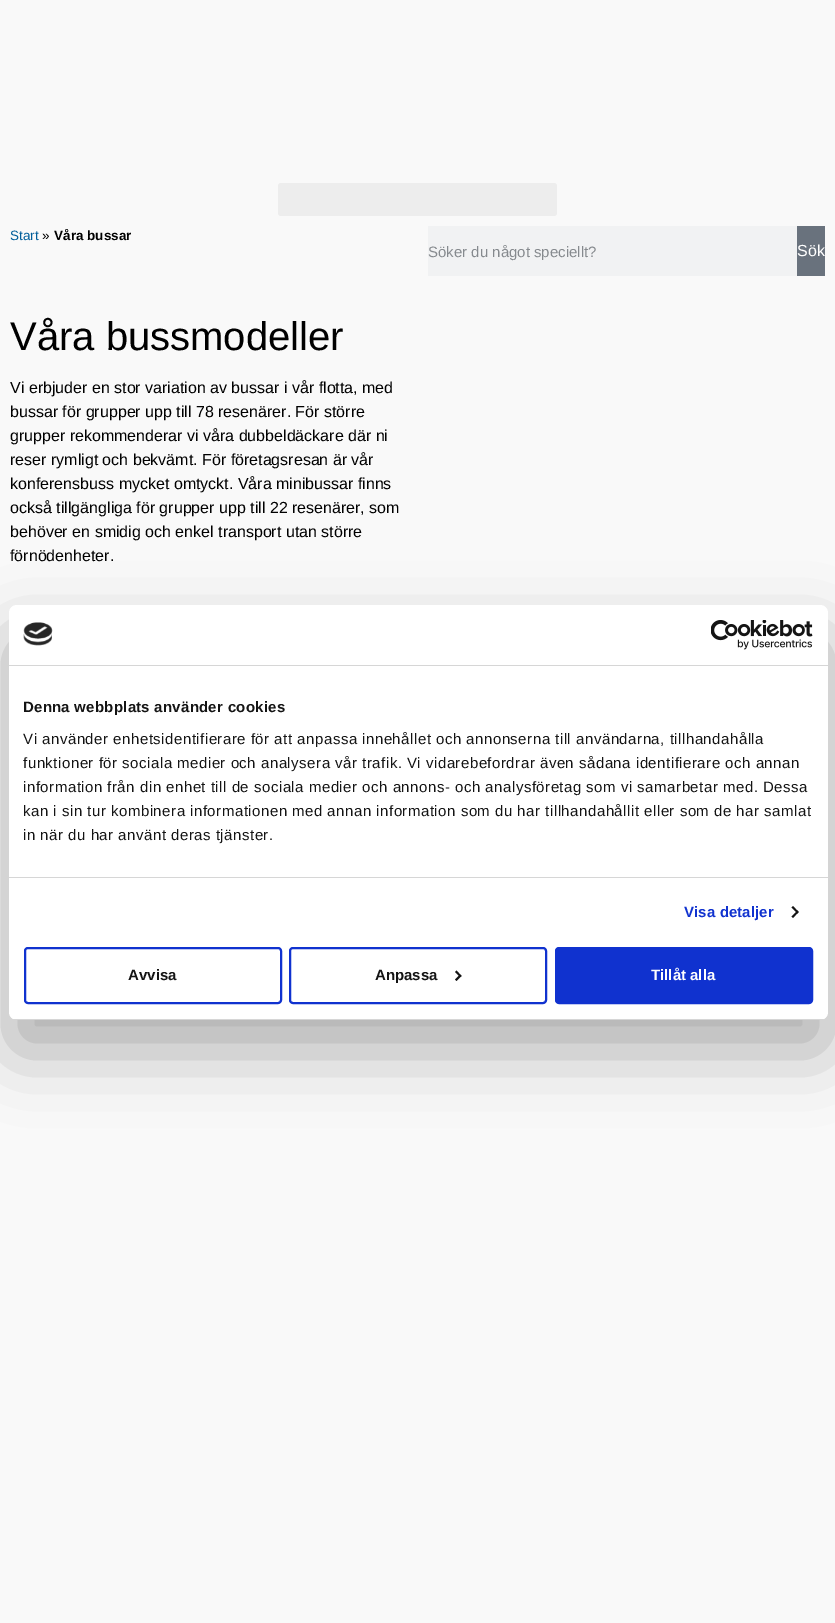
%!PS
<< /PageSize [835 1623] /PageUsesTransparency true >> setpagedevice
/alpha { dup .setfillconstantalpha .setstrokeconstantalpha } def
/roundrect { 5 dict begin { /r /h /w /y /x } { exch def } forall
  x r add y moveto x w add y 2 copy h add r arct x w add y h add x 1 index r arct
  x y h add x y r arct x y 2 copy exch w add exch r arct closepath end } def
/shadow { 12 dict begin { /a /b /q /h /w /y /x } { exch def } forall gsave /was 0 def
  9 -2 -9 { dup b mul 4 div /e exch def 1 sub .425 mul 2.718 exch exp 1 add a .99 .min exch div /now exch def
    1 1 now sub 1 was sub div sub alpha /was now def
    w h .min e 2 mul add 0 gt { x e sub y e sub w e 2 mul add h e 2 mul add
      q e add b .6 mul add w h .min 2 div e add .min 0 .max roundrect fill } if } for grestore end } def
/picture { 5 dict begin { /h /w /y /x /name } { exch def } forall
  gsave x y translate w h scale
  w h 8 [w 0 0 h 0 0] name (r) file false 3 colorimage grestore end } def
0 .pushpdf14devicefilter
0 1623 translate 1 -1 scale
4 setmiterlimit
0.976 setgray
0 0 835 1623 rectfill
0.929 setgray
278 183 279 33 3 roundrect fill
/LiberationSans-Regular [13.5 0 0 -13.5 0 0] selectfont
0 0.365 0.604 setrgbcolor
10 240 moveto (Start) show
0 setgray
42 240 moveto (») show
/LiberationSans-Bold [13.5 0 0 -13.5 0 0] selectfont
54 240 moveto (Våra bussar) show
0.945 0.949 0.953 setrgbcolor
428 226 369 50 rectfill
/LiberationSans-Regular [15 0 0 -15 0 0] selectfont
0.525 0.541 0.557 setrgbcolor
428 257 moveto (Söker du något speciellt?) show
0.412 0.447 0.49 setrgbcolor
797 226 28 50 rectfill
/LiberationSans-Regular [16 0 0 -16 0 0] selectfont
1 setgray
797 256 moveto (Sök) show
/LiberationSans-Regular [40 0 0 -40 0 0] selectfont
0 setgray
10 350 moveto (Våra bussmodeller) show
/LiberationSans-Regular [16 0 0 -16 0 0] selectfont
10 393 moveto (Vi erbjuder en stor variation av bussar i vår flotta, med) show
10 417 moveto (bussar för grupper upp till 78 resenärer. För större) show
10 441 moveto (grupper rekommenderar vi våra dubbeldäckare där ni) show
10 465 moveto (reser rymligt och bekvämt. För företagsresan är vår) show
10 489 moveto (konferensbuss mycket omtyckt. Våra minibussar finns) show
10 513 moveto (också tillgängliga för grupper upp till 22 resenärer, som) show
10 537 moveto (behöver en smidig och enkel transport utan större) show
10 561 moveto (förnödenheter.) show
9 637 819 415 8 34 0.3 shadow
1 setgray
9 605 819 415 8 roundrect fill
0.839 setgray
9 665 819 1 rectfill
(img1.rgb) 23 622 30 24 picture
(img2.rgb) 711 620 102 30 picture
9 877 819 1 rectfill
/LiberationSans-Bold [15 0 0 -15 0 0] selectfont
0.078 setgray
23 712 moveto 0.25 0 (Denna webbplats använder cookies) ashow
/LiberationSans-Regular [15 0 0 -15 0 0] selectfont
23 744 moveto 0.5 0 (Vi använder enhetsidentifierare för att anpassa innehållet och annonserna till användarna, tillhandahålla) ashow
23 768 moveto 0.5 0 (funktioner för sociala medier och analysera vår trafik. Vi vidarebefordrar även sådana identifierare och annan) ashow
23 792 moveto 0.5 0 (information från din enhet till de sociala medier och annons- och analysföretag som vi samarbetar med. Dessa) ashow
23 816 moveto 0.5 0 (kan i sin tur kombinera informationen med annan information som du har tillhandahållit eller som de har samlat) ashow
23 840 moveto 0.5 0 (in när du har använt deras tjänster.) ashow
/LiberationSans-Bold [15 0 0 -15 0 0] selectfont
0.063 0.196 0.812 setrgbcolor
684 917 moveto 0.1 0 (Visa detaljer) ashow
0.078 setgray
newpath 793 906 moveto 798.5 912 lineto 797.5 913.5 lineto 791.5 907.5 lineto closepath fill
newpath 797.5 910.5 moveto 798.5 912 lineto 793 918 lineto 791.5 916.5 lineto closepath fill
gsave
9 605 819 415 8 roundrect clip newpath
0.839 setgray
9 1019 819 1 rectfill
grestore
0.063 0.196 0.812 setrgbcolor
2 setlinewidth
25 948 256 55 3 roundrect stroke
0.078 setgray
128 980 moveto (Avvisa) show
0.063 0.196 0.812 setrgbcolor
290 948 256 55 3 roundrect stroke
0.078 setgray
375 980 moveto (Anpassa) show
newpath 456.5 970.5 moveto 461.5 976 lineto 460 977 lineto 455 972 lineto closepath fill
newpath 460 974.5 moveto 461.5 976 lineto 456.5 981 lineto 455 979.5 lineto closepath fill
0.063 0.196 0.812 setrgbcolor
556 948 256 55 3 roundrect gsave fill grestore
stroke
1 setgray
651 980 moveto (Tillåt alla) show
.poppdf14devicefilter showpage
